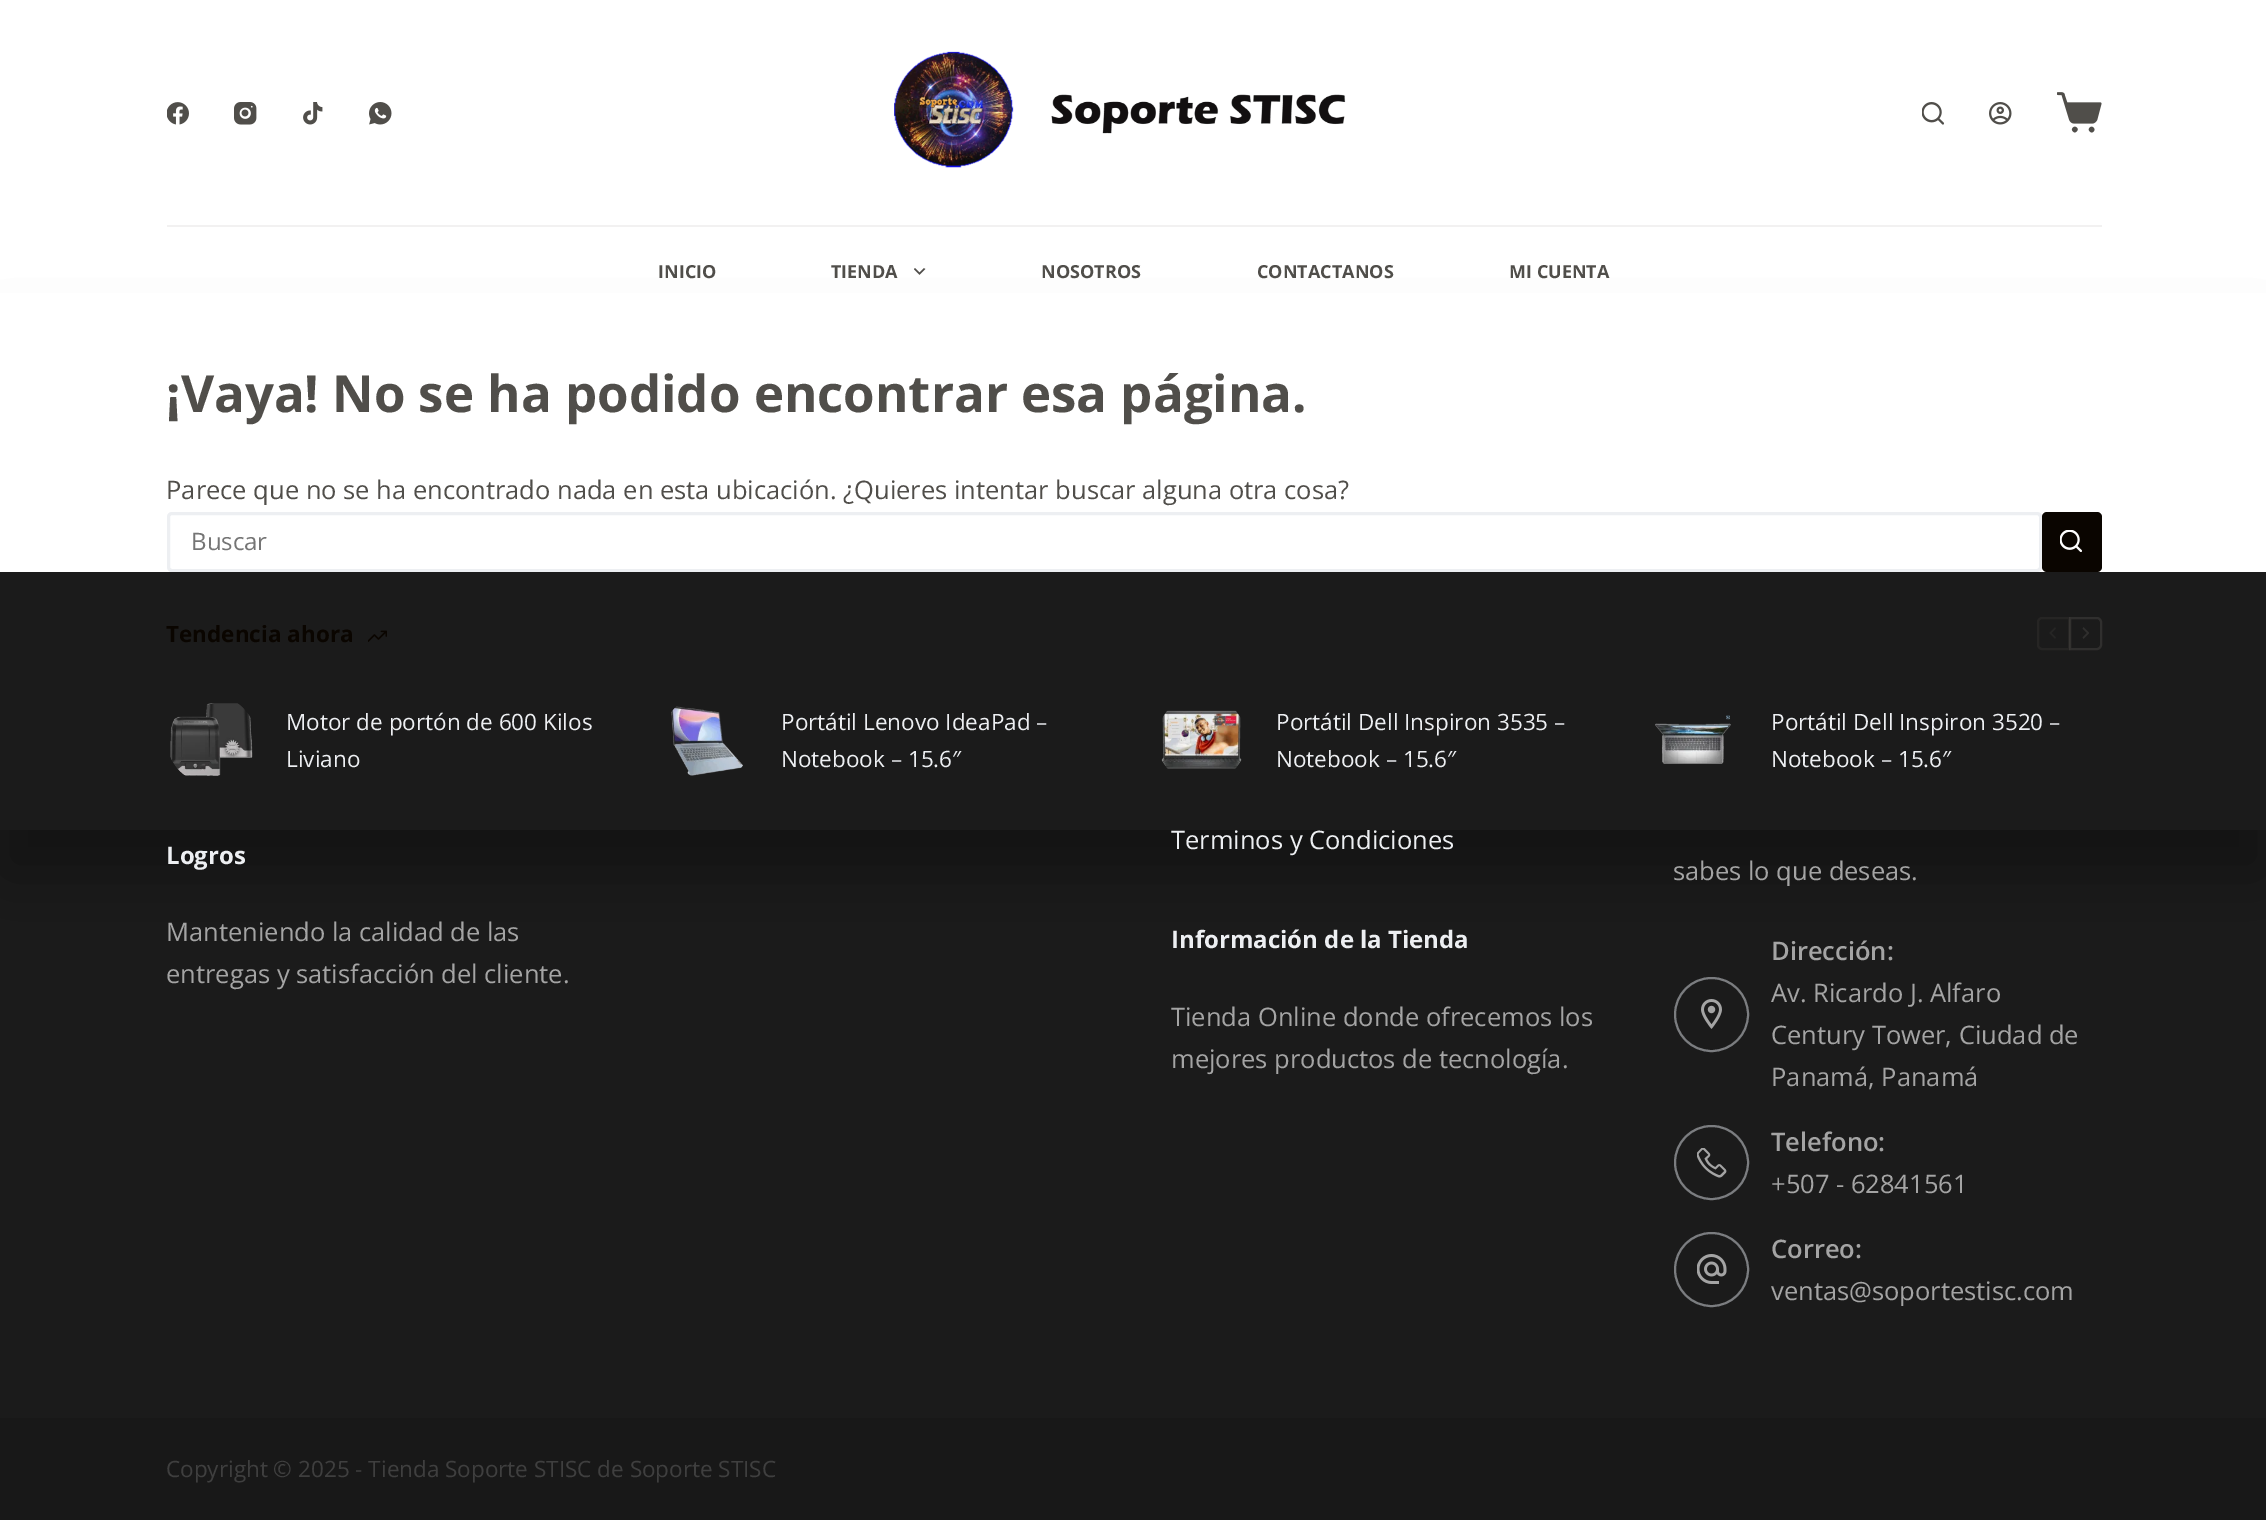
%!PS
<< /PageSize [2266 1520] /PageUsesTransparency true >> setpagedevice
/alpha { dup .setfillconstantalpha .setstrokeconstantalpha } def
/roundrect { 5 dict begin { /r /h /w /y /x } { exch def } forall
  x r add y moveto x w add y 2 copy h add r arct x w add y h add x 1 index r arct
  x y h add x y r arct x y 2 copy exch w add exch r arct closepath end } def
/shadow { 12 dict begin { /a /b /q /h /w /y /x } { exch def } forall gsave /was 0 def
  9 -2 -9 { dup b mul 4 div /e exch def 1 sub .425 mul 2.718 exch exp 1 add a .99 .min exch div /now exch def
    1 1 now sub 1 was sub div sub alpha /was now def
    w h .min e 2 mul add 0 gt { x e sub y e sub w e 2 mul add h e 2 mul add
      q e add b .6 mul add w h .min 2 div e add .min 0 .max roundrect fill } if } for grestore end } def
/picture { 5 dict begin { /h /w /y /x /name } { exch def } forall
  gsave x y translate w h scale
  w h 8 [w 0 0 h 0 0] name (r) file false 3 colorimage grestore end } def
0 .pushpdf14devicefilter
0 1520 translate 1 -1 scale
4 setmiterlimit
1 setgray
0 0 2266 1520 rectfill
(img1.rgb) 167 102 22 23 picture
(img2.rgb) 234 102 23 23 picture
(img3.rgb) 303 102 20 23 picture
(img4.rgb) 369 102 23 23 picture
(img5.rgb) 894 51 452 117 picture
(img6.rgb) 1922 102 22 23 picture
(img7.rgb) 1989 102 23 23 picture
(img8.rgb) 2057 92 45 41 picture
0.949 0.945 0.945 setrgbcolor
167 225 1935 2 rectfill
0.106 setgray
0 830 2266 588 rectfill
0.482 0.49 0.502 setrgbcolor
2 setlinewidth
newpath 1711.5 1014.5 36.5 0 360 arc closepath stroke
0 setgray
0 362 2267 513 0 37.5 0.3 shadow
/OpenSans-Bold [18 0 0 -18 0 0] selectfont
0.314 0.306 0.29 setrgbcolor
658 278 moveto (INICIO) show
831 278 moveto (TIENDA) show
(img9.rgb) 914 268 12 7 picture
1041 278 moveto (NOSOTROS) show
1257 278 moveto (CONTACTANOS) show
1509 278 moveto (MI CUENTA) show
1 setgray
0 293 2266 279 rectfill
/OpenSans-Bold [51 0 0 -51 0 0] selectfont
0.314 0.306 0.29 setrgbcolor
166 412 moveto (¡Vaya! No se ha podido encontrar esa página.) show
/OpenSans-Regular [25.5 0 0 -25.5 0 0] selectfont
166 499 moveto (Parece que no se ha encontrado nada en esta ubicación. ¿Quieres intentar buscar alguna otra cosa?) show
0.929 0.937 0.949 setrgbcolor
3 setlinewidth
168.5 513.5 1872 57 3.5 roundrect stroke
/OpenSans-Regular [24 0 0 -24 0 0] selectfont
0.459 setgray
191 550 moveto (Buscar) show
0.039 0.02 0 setrgbcolor
2042 512 60 60 5 roundrect fill
(img10.rgb) 2060 530 22 22 picture
/OpenSans-Regular [25.5 0 0 -25.5 0 0] selectfont
0.929 0.937 0.949 setrgbcolor
1171 849 moveto (Terminos y Condiciones) show
0.106 setgray
0 572 2266 258 rectfill
/OpenSans-Bold [22.5 0 0 -22.5 0 0] selectfont
0.039 0.02 0 setrgbcolor
166 642 moveto (Tendencia ahora) show
(img11.rgb) 368 630 19 12 picture
0.149 0.145 0.141 setrgbcolor
2 setlinewidth
newpath 2042 618 moveto 2069 618 lineto 2069 649 lineto 2042 649 lineto 2040 649 2038 647 2038 645 curveto 2038 622 lineto 2038 620 2040 618 2042 618 curveto closepath stroke
(img12.rgb) 2049 627 7 12 picture
0.4 alpha
0.314 0.306 0.29 setrgbcolor
newpath 2070 618 moveto 2097 618 lineto 2099 618 2101 620 2101 622 curveto 2101 645 lineto 2101 647 2099 649 2097 649 curveto 2070 649 lineto closepath stroke
1 alpha
(img13.rgb) 2082 627 7 12 picture
(img14.rgb) 170 703 83 73 picture
/OpenSans-Regular [22.5 0 0 -22.5 0 0] selectfont
0.929 0.937 0.949 setrgbcolor
286 730 moveto (Motor de portón de 600 Kilos) show
286 767 moveto (Liviano) show
(img15.rgb) 671 706 72 70 picture
781 730 moveto (Portátil Lenovo IdeaPad –) show
781 767 moveto (Notebook – 15.6″) show
(img16.rgb) 1161 710 81 59 picture
1276 730 moveto (Portátil Dell Inspiron 3535 –) show
1276 767 moveto (Notebook – 15.6″) show
(img17.rgb) 1655 715 76 49 picture
1771 730 moveto (Portátil Dell Inspiron 3520 –) show
1771 767 moveto (Notebook – 15.6″) show
/OpenSans-Bold [24 0 0 -24 0 0] selectfont
166 864 moveto (Logros) show
/OpenSans-Regular [25.5 0 0 -25.5 0 0] selectfont
0.643 setgray
166 941 moveto (Manteniendo la calidad de las) show
166 983 moveto (entregas y satisfacción del cliente.) show
/OpenSans-Bold [24 0 0 -24 0 0] selectfont
0.929 0.937 0.949 setrgbcolor
1171 948 moveto (Información de la Tienda) show
/OpenSans-Regular [25.5 0 0 -25.5 0 0] selectfont
0.643 setgray
1171 1026 moveto (Tienda Online donde ofrecemos los) show
1171 1068 moveto (mejores productos de tecnología.) show
1673 880 moveto (sabes lo que deseas.) show
(img18.rgb) 1701 999 21 30 picture
/OpenSans-SemiBold [25.5 0 0 -25.5 0 0] selectfont
1771 960 moveto (Dirección:) show
/OpenSans-Regular [25.5 0 0 -25.5 0 0] selectfont
1771 1002 moveto (Av. Ricardo J. Alfaro) show
1771 1044 moveto (Century Tower, Ciudad de) show
1771 1086 moveto (Panamá, Panamá) show
0.482 0.49 0.502 setrgbcolor
newpath 1711.5 1162.5 36.5 0 360 arc closepath stroke
(img19.rgb) 1697 1148 30 30 picture
/OpenSans-SemiBold [25.5 0 0 -25.5 0 0] selectfont
0.643 setgray
1771 1151 moveto (Telefono:) show
/OpenSans-Regular [25.5 0 0 -25.5 0 0] selectfont
1771 1193 moveto (+507 - 62841561) show
0.482 0.49 0.502 setrgbcolor
newpath 1711.5 1269.5 36.5 0 360 arc closepath stroke
(img20.rgb) 1697 1254 30 30 picture
/OpenSans-SemiBold [25.5 0 0 -25.5 0 0] selectfont
0.643 setgray
1771 1258 moveto (Correo:) show
/OpenSans-Regular [25.5 0 0 -25.5 0 0] selectfont
1771 1300 moveto (ventas@soportestisc.com) show
0.094 setgray
0 1418 2266 102 rectfill
/OpenSans-Regular [22.5 0 0 -22.5 0 0] selectfont
0.247 setgray
166 1477 moveto (Copyright © 2025 - Tienda Soporte STISC de Soporte STISC) show
.poppdf14devicefilter showpage
